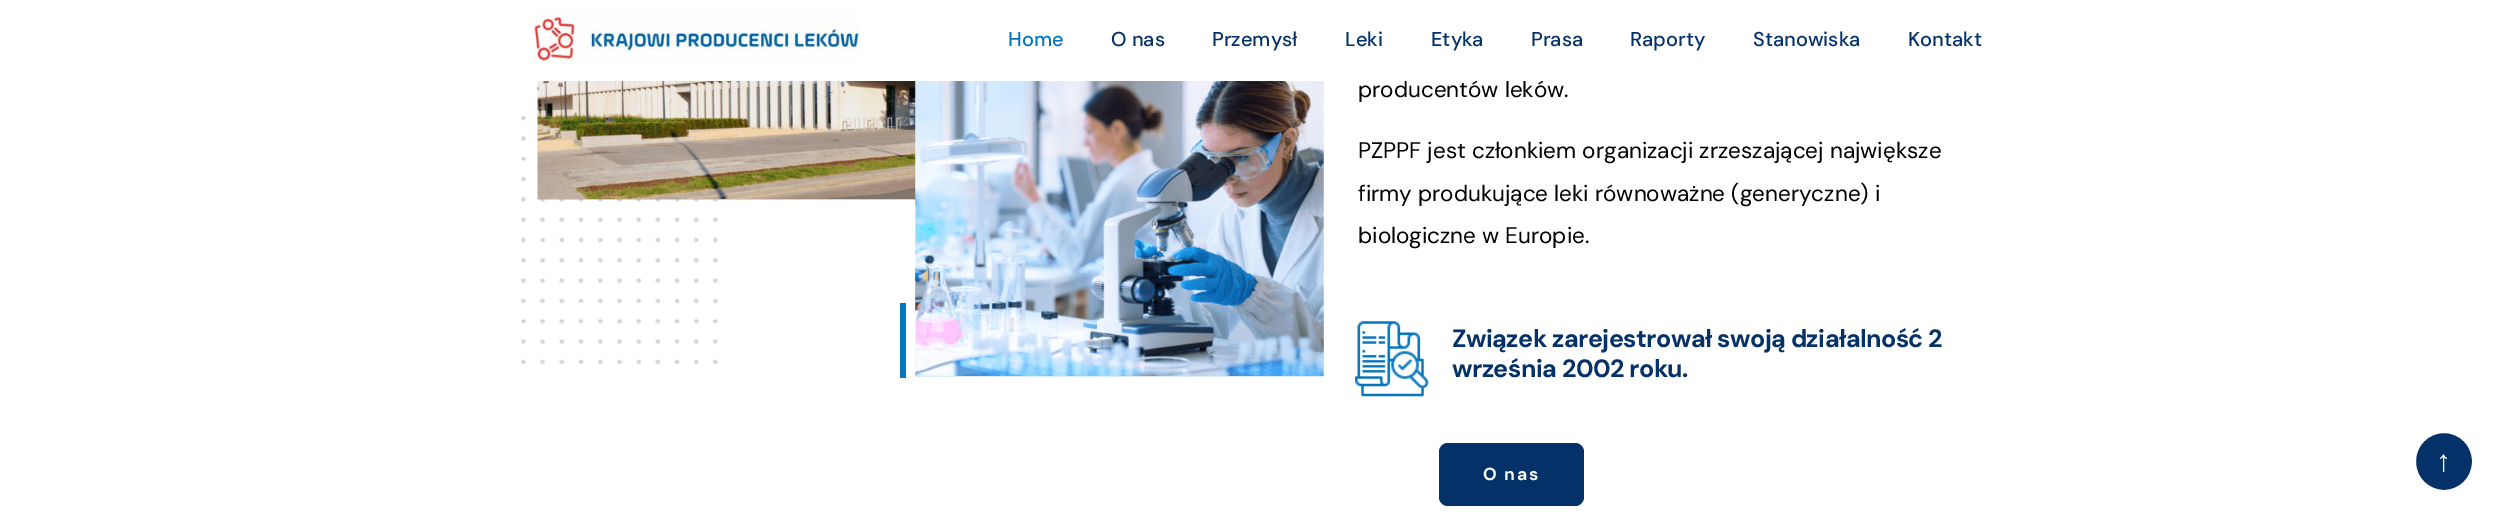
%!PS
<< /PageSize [2499 517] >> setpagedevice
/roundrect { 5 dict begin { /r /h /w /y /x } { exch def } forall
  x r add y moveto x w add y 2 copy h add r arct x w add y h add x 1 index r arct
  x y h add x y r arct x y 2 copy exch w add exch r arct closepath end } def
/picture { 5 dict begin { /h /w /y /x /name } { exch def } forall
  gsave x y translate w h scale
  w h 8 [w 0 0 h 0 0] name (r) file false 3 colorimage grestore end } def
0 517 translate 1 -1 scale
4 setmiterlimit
1 setgray
0 0 2499 517 rectfill
/DMSans-Regular [22.5 0 0 -22.5 0 0] selectfont
0 setgray
1358 97 moveto (producentów leków.) show
1 setgray
1404 80 139 1 rectfill
(img1.rgb) 533 9 327 56 picture
/DMSans-Medium [20 0 0 -20 0 0] selectfont
0.02 0.459 0.737 setrgbcolor
1008 46 moveto (Home) show
0.016 0.196 0.408 setrgbcolor
1111 46 moveto (O nas) show
1212 46 moveto (Przemysł) show
1345 46 moveto (Leki) show
1431 46 moveto (Etyka) show
1531 46 moveto (Prasa) show
1630 46 moveto (Raporty) show
1753 46 moveto (Stanowiska) show
1908 46 moveto (Kontakt) show
(img2.rgb) 521 116 197 248 picture
0.02 0.459 0.737 setrgbcolor
900 303 6 75 rectfill
(img3.rgb) 537 81 787 296 picture
/DMSans-Regular [22.5 0 0 -22.5 0 0] selectfont
0 setgray
1358 158 moveto (PZPPF jest członkiem organizacji zrzeszającej największe) show
1358 201 moveto (firmy produkujące leki równoważne \(generyczne\) i) show
1358 243 moveto (biologiczne w Europie.) show
(img4.rgb) 1355 321 74 76 picture
/DMSans-Bold [25 0 0 -25 0 0] selectfont
0.016 0.196 0.408 setrgbcolor
1452 347 moveto -0.5 0 (Związek zarejestrował swoją działalność 2) ashow
1452 377 moveto -0.5 0 (września 2002 roku.) ashow
1439 443 145 63 9 roundrect fill
/DMSans-Bold [17.5 0 0 -17.5 0 0] selectfont
1 setgray
1483 480 moveto 1.75 0 (O nas) ashow
0.016 0.196 0.408 setrgbcolor
2414.5 431.5 59 60 29.5 roundrect gsave fill grestore
1 setgray
3 setlinewidth
stroke
/LiberationSans-Regular [30 0 0 -30 0 0] selectfont
2436 471 moveto (↑) show
showpage
